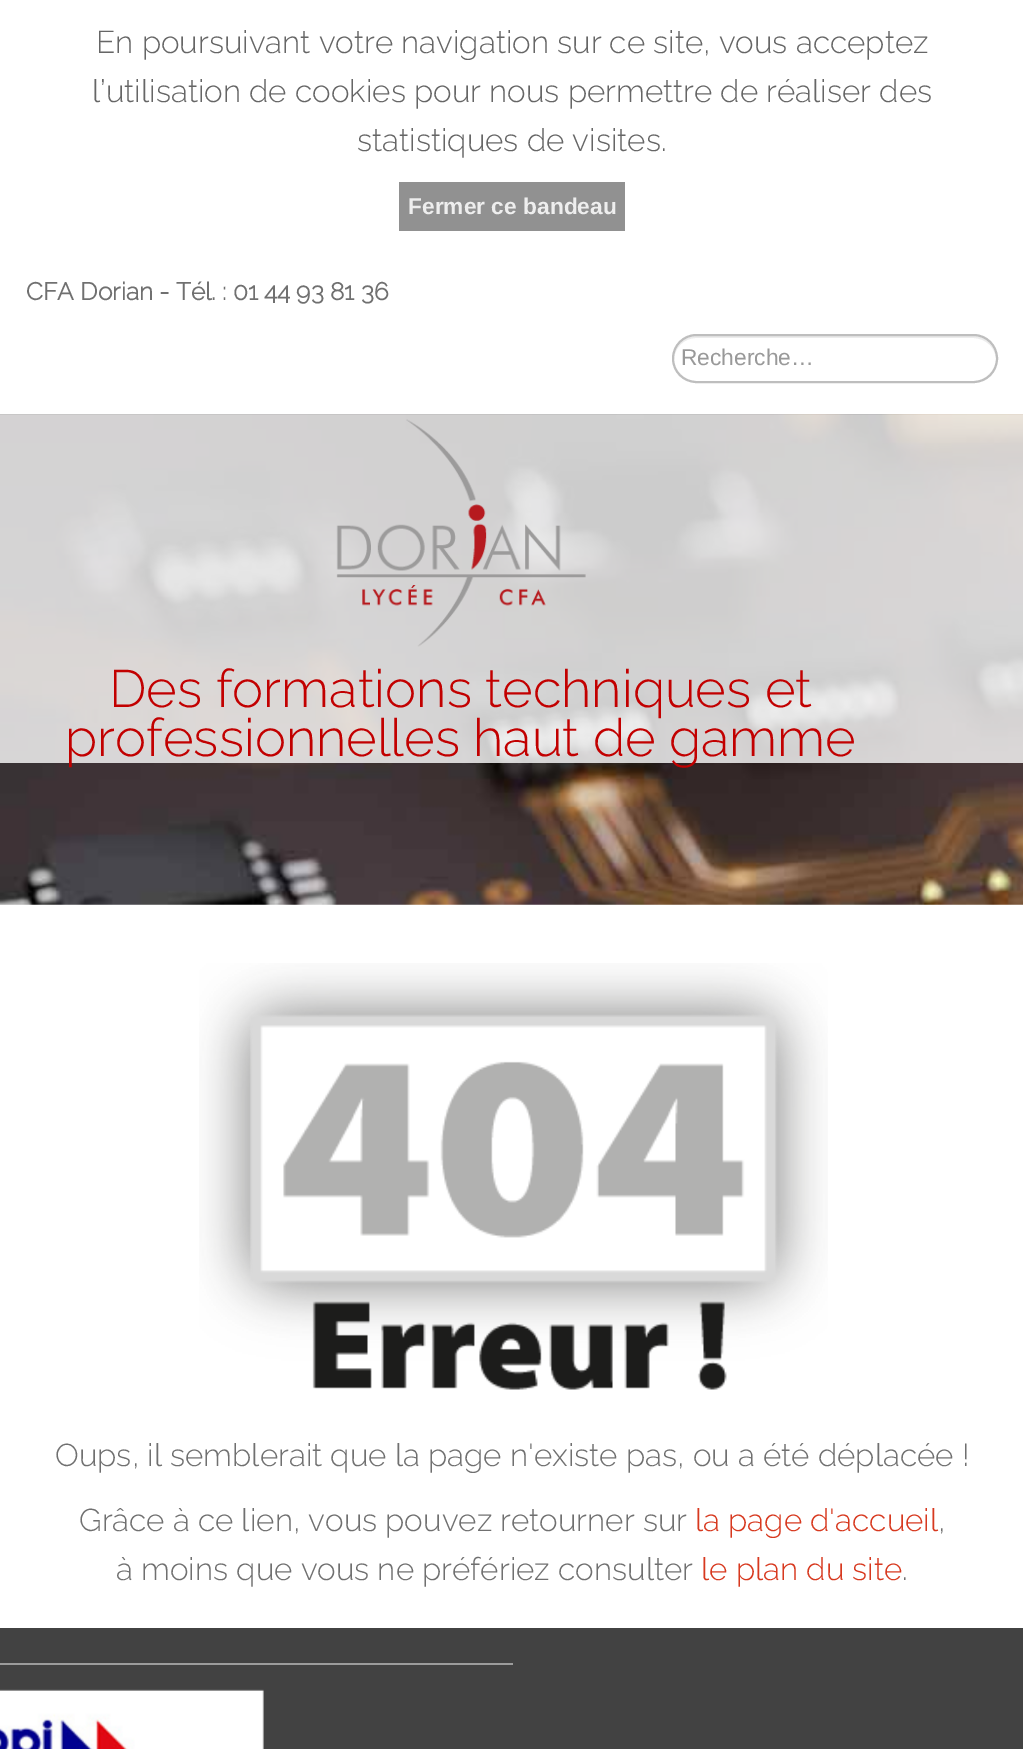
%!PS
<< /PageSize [1023 1749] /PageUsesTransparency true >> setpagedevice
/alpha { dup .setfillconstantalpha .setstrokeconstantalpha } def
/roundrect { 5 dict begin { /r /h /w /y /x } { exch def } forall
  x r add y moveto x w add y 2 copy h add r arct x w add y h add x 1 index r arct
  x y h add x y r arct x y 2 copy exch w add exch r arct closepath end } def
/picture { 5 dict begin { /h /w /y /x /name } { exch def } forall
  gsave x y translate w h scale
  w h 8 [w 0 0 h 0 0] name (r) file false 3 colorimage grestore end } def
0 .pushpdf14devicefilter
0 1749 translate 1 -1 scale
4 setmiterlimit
1 setgray
0 0 1023 1749 rectfill
/Raleway-Thin [31.5 0 0 -31.5 0 0] selectfont
0.4 setgray
96 53 moveto (En poursuivant votre navigation sur ce site, vous acceptez) show
92 102 moveto (l’utilisation de cookies pour nous permettre de réaliser des) show
357 151 moveto (statistiques de visites.) show
0.569 setgray
399 182 226 49 rectfill
/LiberationSans-Bold [22.75 0 0 -22.75 0 0] selectfont
0.933 setgray
408 214 moveto (Fermer ce bandeau) show
/Raleway-Bold [24.5 0 0 -24.5 0 0] selectfont
0.439 setgray
26 300 moveto (CFA Dorian - Tél. : 01 44 93 81 36) show
0.925 setgray
newpath 696 338 moveto 973 338 lineto 986 338 996 348 996 360 curveto 996 347 986 336 973 336 curveto 697 336 lineto 684 336 674 347 674 360 curveto 674 348 684 338 696 338 curveto closepath fill
0.745 setgray
2 setlinewidth
673 335 324 47 23.5 roundrect stroke
/LiberationSans-Regular [22.75 0 0 -22.75 0 0] selectfont
0.6 setgray
681 365 moveto (Recherche…) show
(img1.rgb) 0 414 1023 491 picture
0.8 alpha
1 setgray
0 415 1023 348 rectfill
1 alpha
(img2.rgb) 336 419 250 228 picture
/Raleway-Thin [52.5 0 0 -52.5 0 0] selectfont
0.761 0 0 setrgbcolor
109 707 moveto (Des formations techniques et) show
65 756 moveto (professionnelles haut de gamme) show
(img3.rgb) 199 963 629 427 picture
/Raleway-Thin [31.5 0 0 -31.5 0 0] selectfont
0.439 setgray
55 1466 moveto (Oups, il semblerait que la page n'existe pas, ou a été déplacée !) show
79 1531 moveto (Grâce à ce lien, vous pouvez retourner sur) show
0.843 0.224 0.122 setrgbcolor
695 1531 moveto (la page d'accueil) show
0.439 setgray
938 1531 moveto (,) show
116 1580 moveto (à moins que vous ne préfériez consulter) show
0.843 0.224 0.122 setrgbcolor
701 1580 moveto (le plan du site) show
0.439 setgray
902 1580 moveto (.) show
0.259 setgray
0 1628 1023 121 rectfill
0.612 setgray
0 1663 513 2 rectfill
(img4.rgb) 0 1689 264 60 picture
.poppdf14devicefilter showpage
